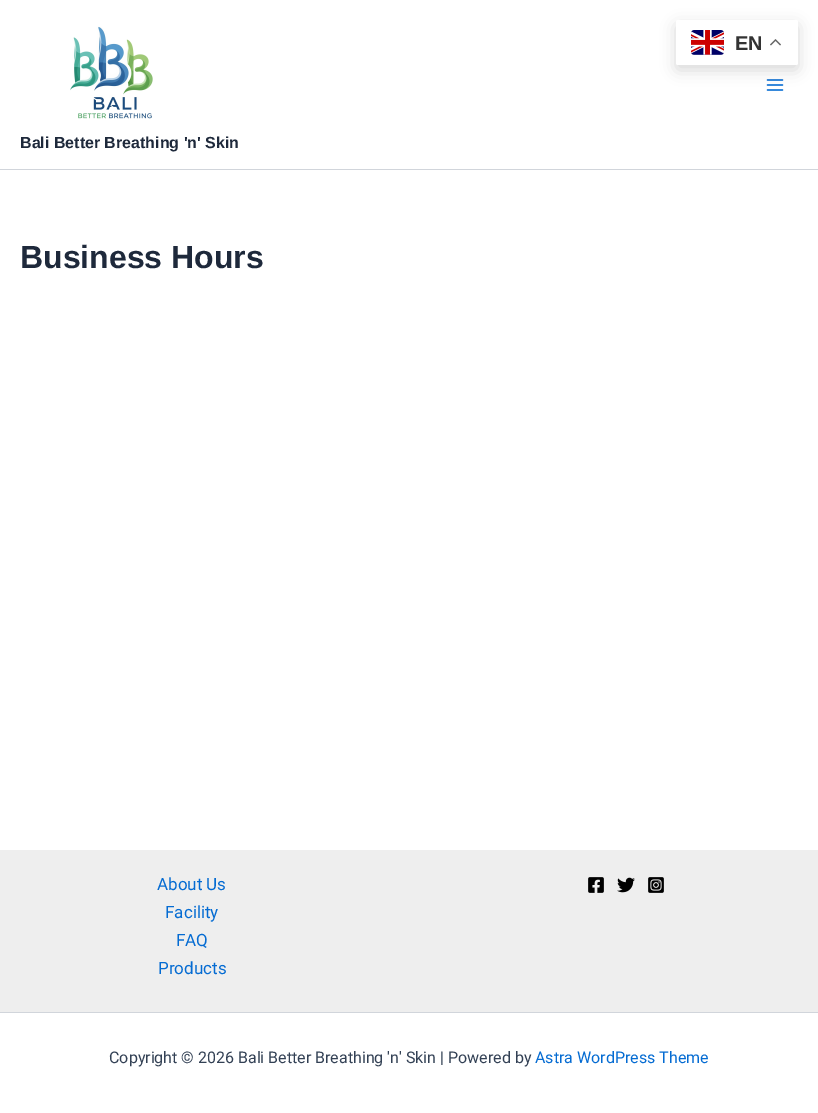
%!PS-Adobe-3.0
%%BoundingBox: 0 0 818 1113
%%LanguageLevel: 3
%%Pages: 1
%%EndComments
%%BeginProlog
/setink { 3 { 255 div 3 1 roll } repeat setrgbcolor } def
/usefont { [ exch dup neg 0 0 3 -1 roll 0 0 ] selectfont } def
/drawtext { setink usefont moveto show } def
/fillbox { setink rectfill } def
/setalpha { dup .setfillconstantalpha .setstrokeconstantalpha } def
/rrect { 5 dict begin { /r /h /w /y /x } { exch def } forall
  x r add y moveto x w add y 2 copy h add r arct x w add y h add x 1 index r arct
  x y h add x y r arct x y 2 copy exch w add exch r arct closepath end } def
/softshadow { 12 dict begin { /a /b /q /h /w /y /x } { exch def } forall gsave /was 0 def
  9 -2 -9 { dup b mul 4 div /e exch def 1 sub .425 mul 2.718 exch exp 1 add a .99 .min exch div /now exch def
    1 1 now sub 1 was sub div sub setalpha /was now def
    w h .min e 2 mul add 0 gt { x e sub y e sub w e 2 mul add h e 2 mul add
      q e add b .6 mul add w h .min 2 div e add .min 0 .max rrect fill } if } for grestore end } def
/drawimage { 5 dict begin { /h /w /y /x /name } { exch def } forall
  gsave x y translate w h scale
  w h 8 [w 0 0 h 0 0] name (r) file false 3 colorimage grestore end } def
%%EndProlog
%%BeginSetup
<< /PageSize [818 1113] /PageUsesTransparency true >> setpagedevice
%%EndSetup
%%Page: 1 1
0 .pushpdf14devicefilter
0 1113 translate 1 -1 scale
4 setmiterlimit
0 0 818 1113 255 255 255 fillbox
(assets/img3.rgb) 766 79 18 12 drawimage
0 0 0 setink
676 25 122 45 2 7.5 0.15 softshadow
255 255 255 setink
676 20 122 45 2 rrect fill
(assets/img1.rgb) 691 30 33 25 drawimage
(EN) 735 50 /LiberationSans-Bold 20 51 51 51 drawtext
(assets/img2.rgb) 770 39 11 7 drawimage
0 169 818 1 209 213 219 fillbox
(assets/img4.rgb) 70 26 83 93 drawimage
(Bali Better Breathing 'n' Skin) 20 148 /LiberationSans-Bold 16 30 41 59 drawtext
(Business Hours) 20 268 /LiberationSans-Bold 32 30 41 59 drawtext
0 850 818 162 238 238 238 fillbox
(About Us) 157 890 /Roboto-Regular 17 4 107 210 drawtext
(Facility) 165 918 /Roboto-Regular 17 4 107 210 drawtext
(FAQ) 176 946 /Roboto-Regular 17 4 107 210 drawtext
(Products) 158 974 /Roboto-Regular 17 4 107 210 drawtext
(assets/img5.rgb) 588 877 16 16 drawimage
(assets/img6.rgb) 617 877 18 16 drawimage
(assets/img7.rgb) 648 877 16 16 drawimage
0 1012 818 1 209 213 219 fillbox
(Copyright © 2026 Bali Better Breathing 'n' Skin | Powered by) 109 1063 /Roboto-Regular 16 51 65 85 drawtext
(Astra WordPress Theme) 535 1063 /Roboto-Regular 16 4 107 210 drawtext
.poppdf14devicefilter showpage
%%EOF
